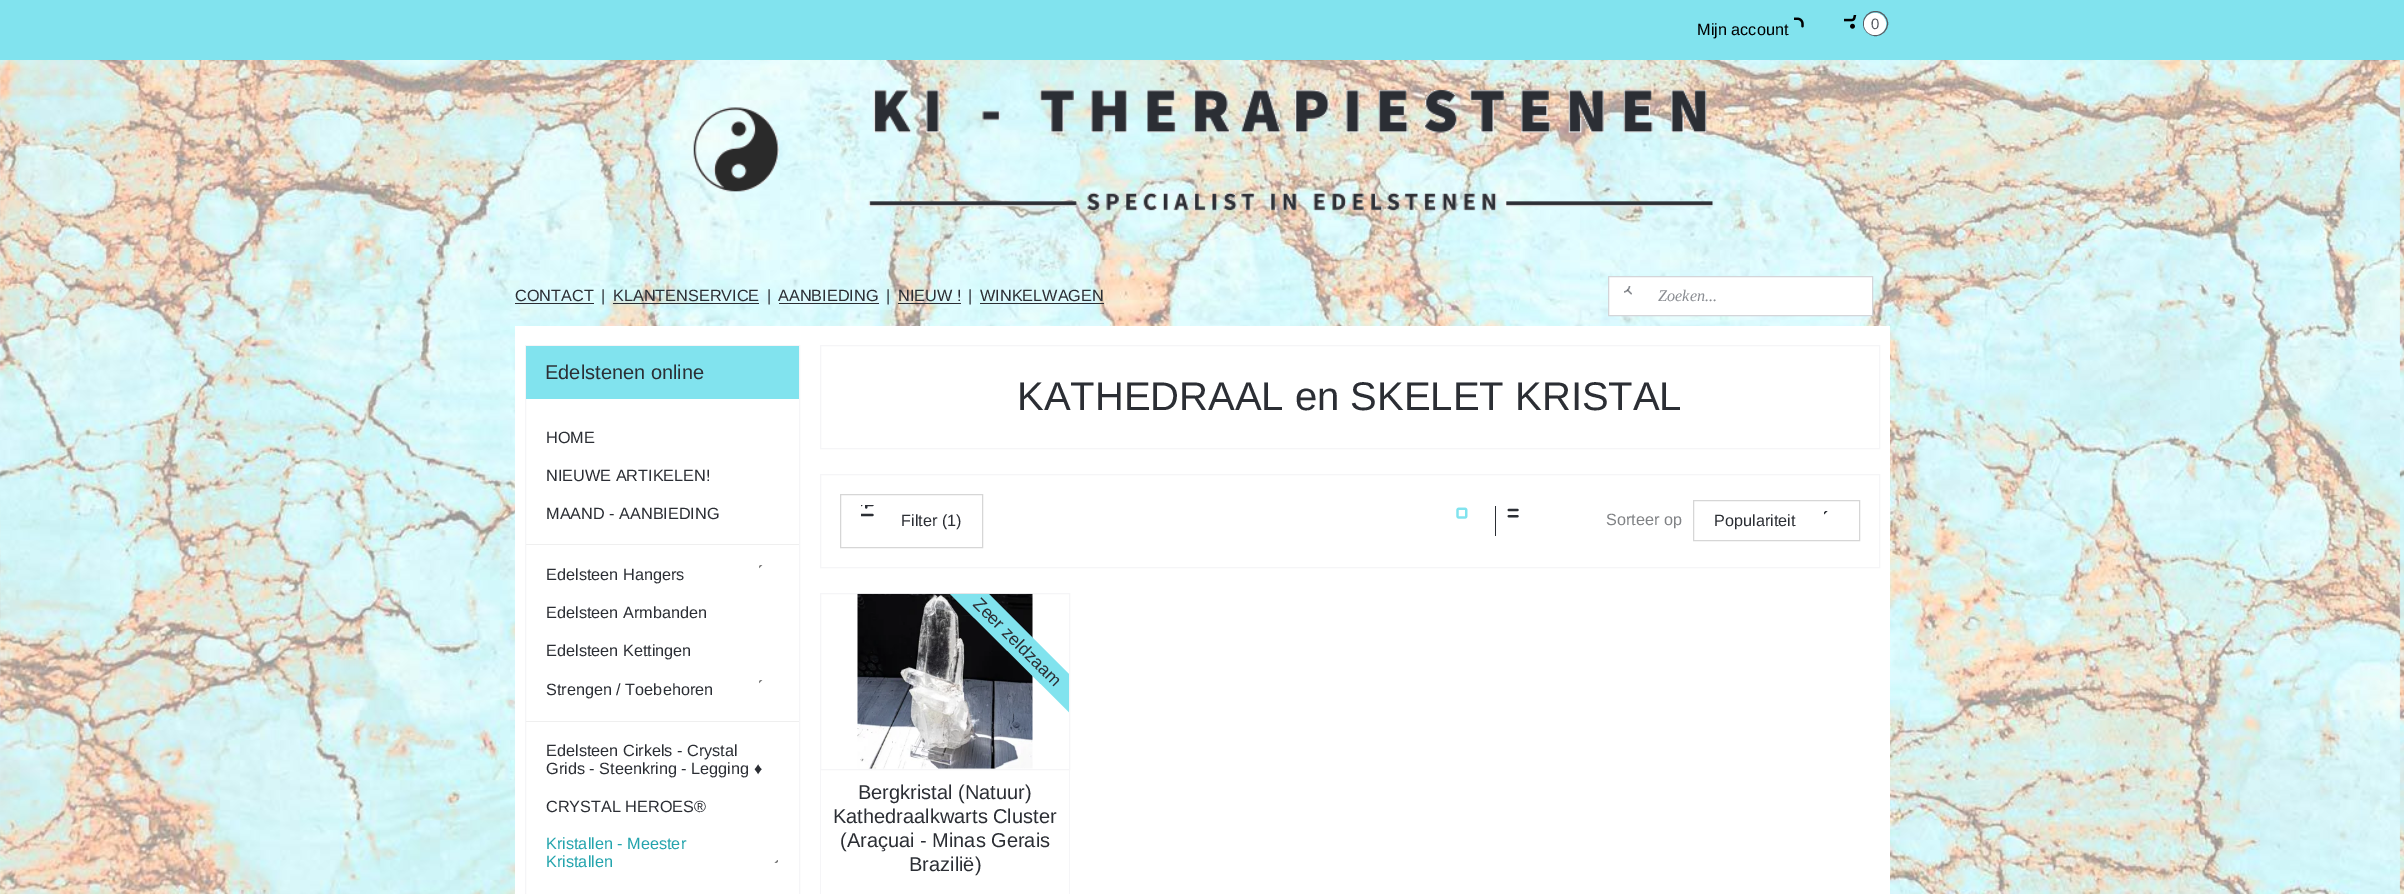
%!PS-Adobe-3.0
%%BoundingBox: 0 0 2404 894
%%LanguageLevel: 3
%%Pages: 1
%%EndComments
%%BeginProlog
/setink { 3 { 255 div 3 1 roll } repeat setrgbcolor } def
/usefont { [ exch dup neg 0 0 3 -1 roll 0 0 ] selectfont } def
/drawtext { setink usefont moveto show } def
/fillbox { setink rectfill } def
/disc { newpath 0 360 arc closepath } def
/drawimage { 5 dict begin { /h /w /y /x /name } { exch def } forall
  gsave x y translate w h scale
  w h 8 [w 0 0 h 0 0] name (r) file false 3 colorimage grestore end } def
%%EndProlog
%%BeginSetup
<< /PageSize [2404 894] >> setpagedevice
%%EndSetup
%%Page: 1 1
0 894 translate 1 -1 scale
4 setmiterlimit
0 0 2404 894 255 255 255 fillbox
(assets/img1.rgb) 0 893 2404 1 drawimage
0 0 2404 60 129 227 238 fillbox
(Mijn account) 1697 35 /LiberationSans-Regular 16.25 0 0 0 drawtext
(assets/img2.rgb) 1794 17 10 11 drawimage
(assets/img3.rgb) 1844 15 13 14 drawimage
87 91 98 setink
1875.5 23.5 12 disc stroke
255 255 255 setink
1875 24 11 disc fill
(0) 1871 29 /LiberationSans-Regular 15 87 91 98 drawtext
(assets/img6.rgb) 0 60 2404 833 drawimage
(assets/img4.rgb) 693 89 1020 122 drawimage
(CONTACT) 515 301 /LiberationSans-Regular 16.25 43 46 52 drawtext
515 303 79 1 43 46 52 fillbox
(|) 601 301 /LiberationSans-Regular 16.25 43 46 52 drawtext
(KLANTENSERVICE) 613 301 /LiberationSans-Regular 16.25 43 46 52 drawtext
613 303 146 1 43 46 52 fillbox
(|) 767 301 /LiberationSans-Regular 16.25 43 46 52 drawtext
(AANBIEDING) 778 301 /LiberationSans-Regular 16.25 43 46 52 drawtext
779 303 100 1 43 46 52 fillbox
(|) 886 301 /LiberationSans-Regular 16.25 43 46 52 drawtext
(NIEUW !) 898 301 /LiberationSans-Regular 16.25 43 46 52 drawtext
898 303 63 1 43 46 52 fillbox
(|) 968 301 /LiberationSans-Regular 16.25 43 46 52 drawtext
(WINKELWAGEN) 980 301 /LiberationSans-Regular 16.25 43 46 52 drawtext
980 303 124 1 43 46 52 fillbox
255 255 255 setink
1608.5 276.5 moveto 1872.5 276.5 lineto 1872.5 315.5 lineto 1608.5 315.5 lineto closepath gsave fill grestore
211 213 217 setink
stroke
(assets/img5.rgb) 1624 286 8 9 drawimage
(Zoeken...) 1658 301 /LiberationSerif-Italic 16.25 137 140 145 drawtext
515 326 1375 568 255 255 255 fillbox
245 245 247 setink
525.5 345.5 274 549 rectstroke
526 346 273 53 129 227 238 fillbox
(Edelstenen online) 545 379 /LiberationSans-Regular 20 43 46 52 drawtext
(HOME) 546 443 /LiberationSans-Regular 16.25 43 46 52 drawtext
(NIEUWE ARTIKELEN!) 546 481 /LiberationSans-Regular 16.25 43 46 52 drawtext
(MAAND - AANBIEDING) 546 519 /LiberationSans-Regular 16.25 43 46 52 drawtext
526 544 273 1 239 239 239 fillbox
(assets/img7.rgb) 759 565 4 4 drawimage
(Edelsteen Hangers) 546 580 /LiberationSans-Regular 16.25 43 46 52 drawtext
(Edelsteen Armbanden) 546 618 /LiberationSans-Regular 16.25 43 46 52 drawtext
(Edelsteen Kettingen) 546 656 /LiberationSans-Regular 16.25 43 46 52 drawtext
(assets/img7.rgb) 759 680 4 4 drawimage
(Strengen / Toebehoren) 546 695 /LiberationSans-Regular 16.25 43 46 52 drawtext
526 721 273 1 239 239 239 fillbox
(Edelsteen Cirkels - Crystal) 546 756 /LiberationSans-Regular 16.25 43 46 52 drawtext
(Grids - Steenkring - Legging ♦) 546 774 /LiberationSans-Regular 16.25 43 46 52 drawtext
(CRYSTAL HEROES®) 546 812 /LiberationSans-Regular 16.25 43 46 52 drawtext
(Kristallen - Meester) 546 849 /LiberationSans-Regular 16.25 35 164 173 drawtext
(Kristallen) 546 867 /LiberationSans-Regular 16.25 35 164 173 drawtext
(assets/img8.rgb) 774 860 4 3 drawimage
245 245 247 setink
820.5 345.5 1059 103 rectstroke
(KATHEDRAAL en SKELET KRISTAL) 1017 410 /LiberationSans-Regular 40 43 46 52 drawtext
245 245 247 setink
820.5 474.5 1059 93 rectstroke
214 214 214 setink
840.5 494.5 142 53 rectstroke
(assets/img9.rgb) 861 505 13 12 drawimage
(Filter \(1\)) 901 526 /LiberationSans-Regular 16.25 43 46 52 drawtext
(assets/img10.rgb) 1456 507 12 12 drawimage
1495 506 1 30 43 46 52 fillbox
(assets/img11.rgb) 1507 508 12 10 drawimage
(Sorteer op) 1606 525 /LiberationSans-Regular 16.25 128 130 133 drawtext
214 214 214 setink
1693.5 500.5 166 40 rectstroke
(assets/img12.rgb) 1824 511 4 4 drawimage
(Populariteit) 1714 526 /LiberationSans-Regular 16.25 43 46 52 drawtext
245 245 247 setink
820.5 593.5 249 176 rectstroke
(assets/img13.rgb) 857 593 176 176 drawimage
gsave
923 594 146 146 rectclip
129 227 238 setink
960 565 moveto 1093 698 lineto 1074 717 lineto 941 585 lineto closepath fill
grestore
/LiberationSans-Regular 17.5 usefont
43 46 52 setink
gsave 972 605 translate 45 rotate 0 0 moveto (Zeer zeldzaam) show grestore
1069 770 1 124 245 245 247 fillbox
820 770 1 124 245 245 247 fillbox
(Bergkristal \(Natuur\)) 858 799 /LiberationSans-Regular 20 43 46 52 drawtext
(Kathedraalkwarts Cluster) 833 823 /LiberationSans-Regular 20 43 46 52 drawtext
(\(Araçuai - Minas Gerais) 840 847 /LiberationSans-Regular 20 43 46 52 drawtext
(Brazilië\)) 909 871 /LiberationSans-Regular 20 43 46 52 drawtext
showpage
%%EOF
